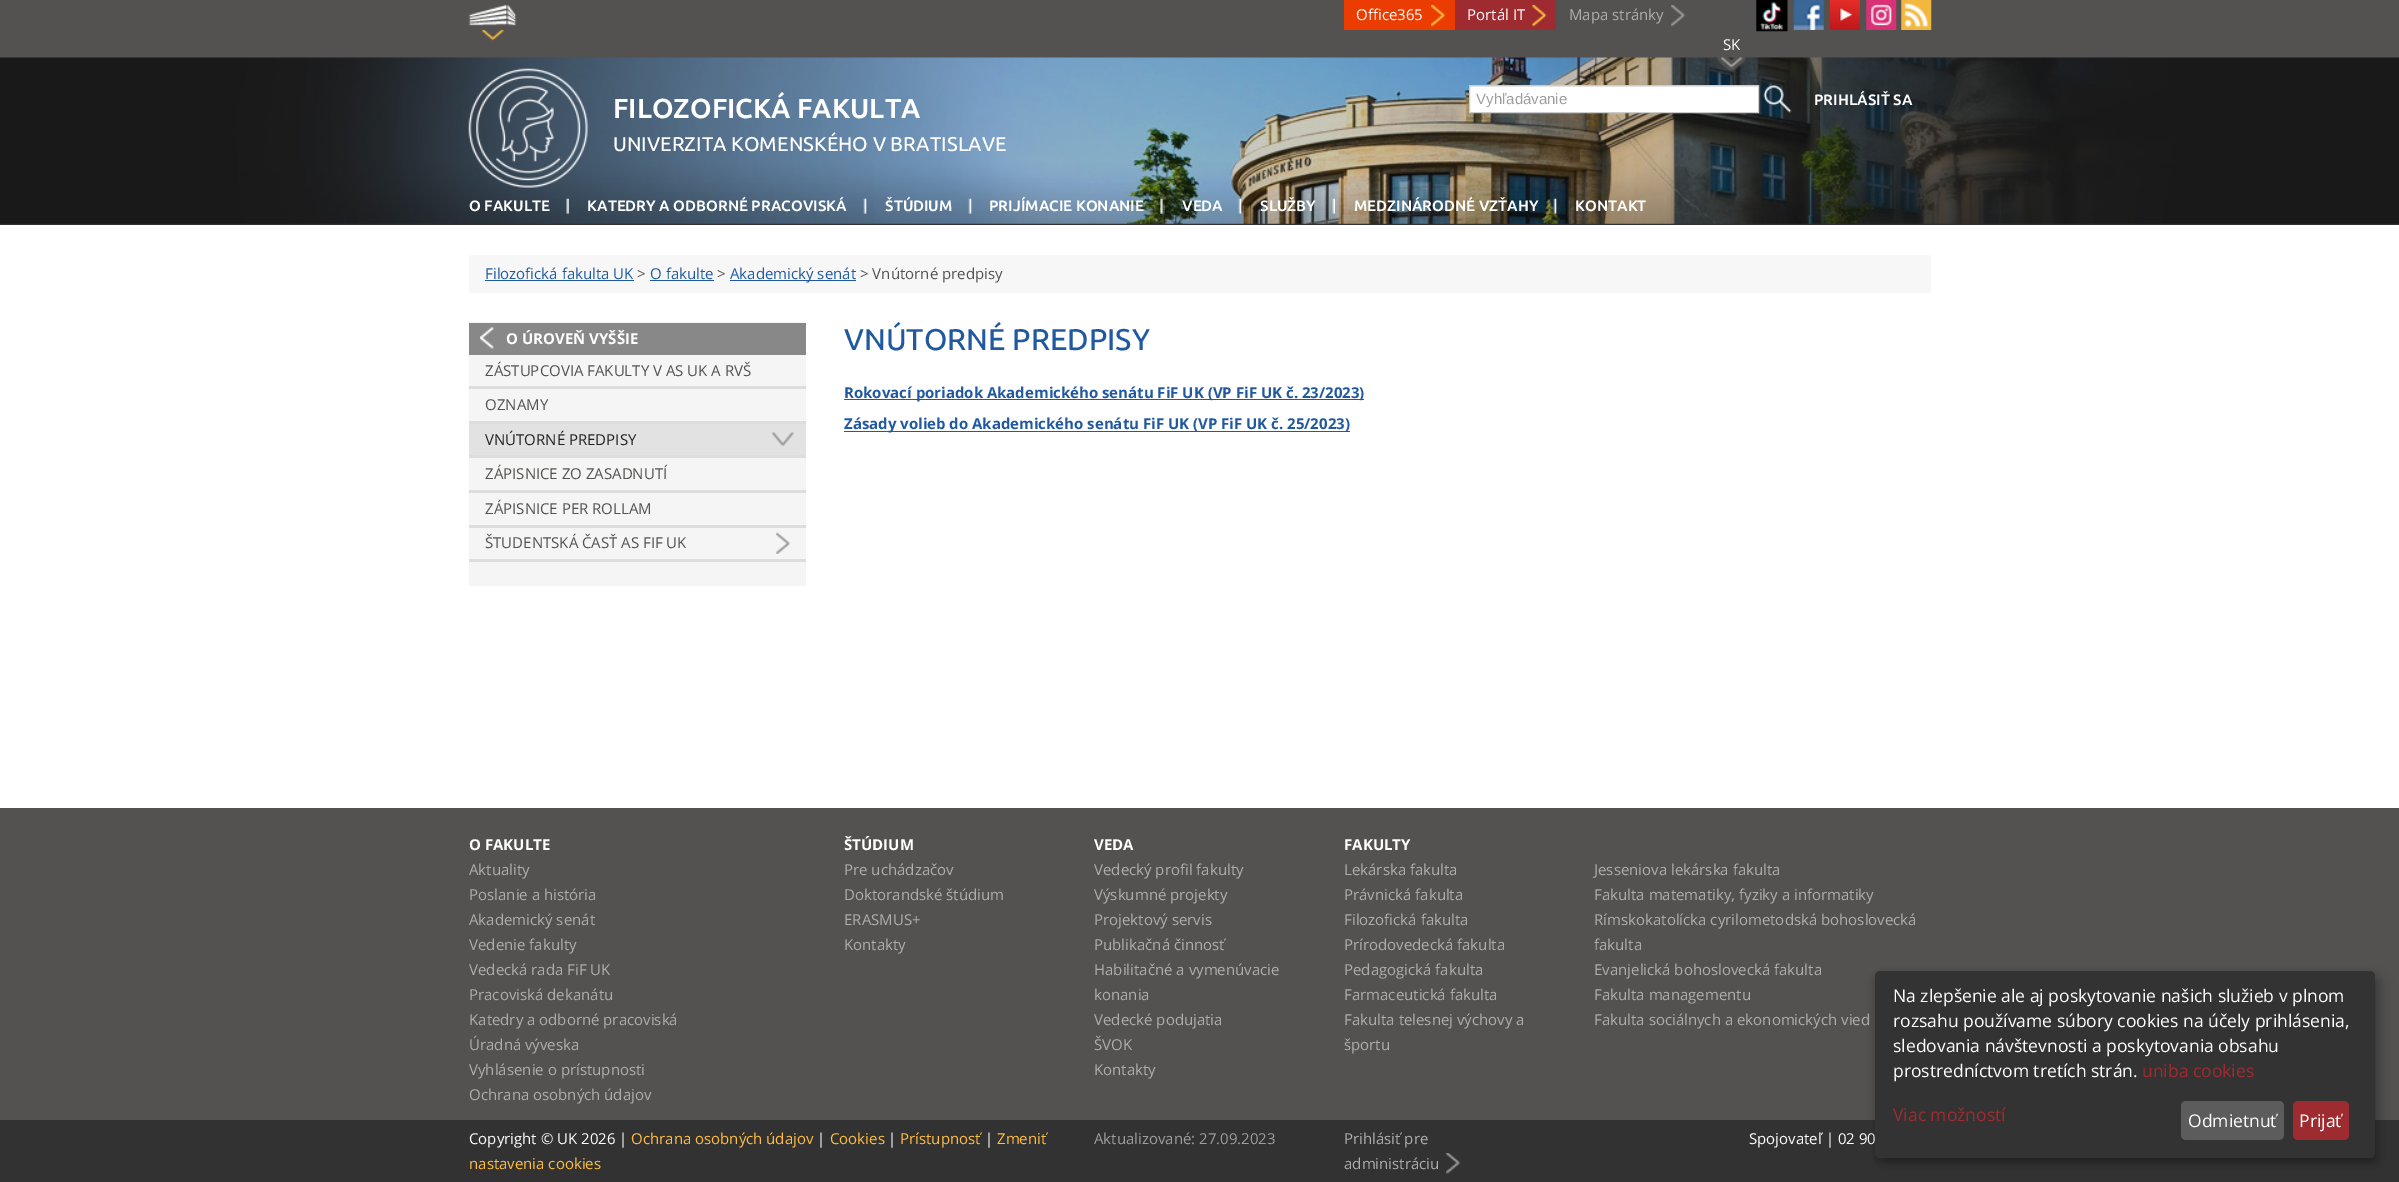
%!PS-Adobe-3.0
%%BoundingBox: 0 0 2399 1182
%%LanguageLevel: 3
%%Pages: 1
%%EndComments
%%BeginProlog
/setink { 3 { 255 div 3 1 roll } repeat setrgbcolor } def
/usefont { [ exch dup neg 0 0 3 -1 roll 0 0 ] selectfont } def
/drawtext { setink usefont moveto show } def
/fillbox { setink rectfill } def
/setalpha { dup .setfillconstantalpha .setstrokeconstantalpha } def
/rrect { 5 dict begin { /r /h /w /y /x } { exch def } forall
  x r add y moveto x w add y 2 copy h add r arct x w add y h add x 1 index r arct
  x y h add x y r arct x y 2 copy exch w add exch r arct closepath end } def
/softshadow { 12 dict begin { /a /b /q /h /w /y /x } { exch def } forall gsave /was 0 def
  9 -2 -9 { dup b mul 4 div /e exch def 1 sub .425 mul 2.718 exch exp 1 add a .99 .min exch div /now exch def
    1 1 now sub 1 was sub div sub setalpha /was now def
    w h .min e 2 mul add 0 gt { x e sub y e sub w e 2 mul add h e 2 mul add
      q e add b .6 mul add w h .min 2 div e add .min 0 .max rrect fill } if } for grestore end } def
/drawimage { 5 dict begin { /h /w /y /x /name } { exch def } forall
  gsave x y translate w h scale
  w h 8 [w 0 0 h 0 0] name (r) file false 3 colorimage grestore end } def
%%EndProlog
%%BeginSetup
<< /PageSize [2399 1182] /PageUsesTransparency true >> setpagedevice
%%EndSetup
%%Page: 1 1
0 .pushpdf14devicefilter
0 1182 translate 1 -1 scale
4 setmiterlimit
0 0 2399 1182 255 255 255 fillbox
0 0 2399 58 83 82 80 fillbox
(assets/img1.rgb) 468 4 49 37 drawimage
1344 0 111 30 235 61 1 fillbox
(assets/img2.rgb) 1431 5 15 22 drawimage
(Office365) 1356 20 /OpenSans-Regular 15 255 255 255 drawtext
1455 0 101 30 158 43 47 fillbox
(assets/img3.rgb) 1532 5 15 22 drawimage
(Portál IT) 1467 20 /OpenSans-Regular 15 255 255 255 drawtext
(assets/img4.rgb) 1671 5 14 22 drawimage
(Mapa stránky) 1569 20 /OpenSans-Regular 15 173 173 173 drawtext
(assets/img5.rgb) 1756 0 32 32 drawimage
(assets/img6.rgb) 1793 0 31 30 drawimage
(assets/img7.rgb) 1830 0 30 30 drawimage
(assets/img8.rgb) 1866 0 31 30 drawimage
(assets/img9.rgb) 1901 0 31 30 drawimage
0 223 2399 2 50 50 50 fillbox
(assets/img11.rgb) 0 57 2399 167 drawimage
(assets/img10.rgb) 1717 57 29 14 drawimage
(SK) 1723 50 /OpenSans-Regular 15 255 255 255 drawtext
(PRIHLÁSIŤ SA) 1814 105 /Ubuntu-Bold 15 255 255 255 drawtext
(O FAKULTE) 469 211 /Ubuntu-Bold 15 255 255 255 drawtext
(assets/img12.rgb) 566 198 3 16 drawimage
(KATEDRY A ODBORNÉ PRACOVISKÁ) 587 211 /Ubuntu-Bold 15 255 255 255 drawtext
(assets/img13.rgb) 863 198 4 16 drawimage
(ŠTÚDIUM) 885 211 /Ubuntu-Bold 15 255 255 255 drawtext
(assets/img14.rgb) 968 198 4 16 drawimage
(PRIJÍMACIE KONANIE) 989 211 /Ubuntu-Bold 15 255 255 255 drawtext
(assets/img15.rgb) 1160 198 3 16 drawimage
(VEDA) 1182 211 /Ubuntu-Bold 15 255 255 255 drawtext
(assets/img16.rgb) 1238 198 4 16 drawimage
(SLUŽBY) 1260 211 /Ubuntu-Bold 15 255 255 255 drawtext
(assets/img17.rgb) 1332 198 3 16 drawimage
(MEDZINÁRODNÉ VZŤAHY) 1354 211 /Ubuntu-Bold 15 255 255 255 drawtext
(assets/img18.rgb) 1553 198 4 16 drawimage
(KONTAKT) 1575 211 /Ubuntu-Bold 15 255 255 255 drawtext
(assets/img19.rgb) 468 68 120 120 drawimage
(FILOZOFICKÁ FAKULTA) 613 118 /Ubuntu-Bold 27.5 255 255 255 drawtext
(UNIVERZITA KOMENSKÉHO V BRATISLAVE) 613 151 /Ubuntu-Medium 20 255 255 255 drawtext
1470 87 288 25 255 255 255 fillbox
1470 86 288 1 236 236 236 fillbox
204 204 204 setink
1469.5 85.5 289 27 rectstroke
(Vyhľadávanie) 1476 104 /LiberationSans-Regular 15 157 157 157 drawtext
(assets/img20.rgb) 1763 85 29 28 drawimage
469 255 1462 38 247 247 247 fillbox
(Filozofická fakulta UK) 485 279 /OpenSans-Regular 15 33 89 160 drawtext
485 280 149 1 33 89 160 fillbox
(>) 637 279 /OpenSans-Regular 15 83 82 80 drawtext
(O fakulte) 650 279 /OpenSans-Regular 15 33 89 160 drawtext
650 280 64 1 33 89 160 fillbox
(>) 717 279 /OpenSans-Regular 15 83 82 80 drawtext
730 280 126 1 33 89 160 fillbox
(Akademický senát) 730 279 /OpenSans-Regular 15 33 89 160 drawtext
(> Vnútorné predpisy) 860 279 /OpenSans-Regular 15 83 82 80 drawtext
469 322 337 264 245 245 245 fillbox
469 323 337 32 136 136 136 fillbox
(assets/img21.rgb) 480 327 14 22 drawimage
(O ÚROVEŇ VYŠŠIE) 506 344 /OpenSans-Bold 15 255 255 255 drawtext
469 386 337 3 221 221 221 fillbox
(ZÁSTUPCOVIA FAKULTY V AS UK A RVŠ) 485 376 /OpenSans-Regular 15 83 82 80 drawtext
469 421 337 3 221 221 221 fillbox
(OZNAMY) 485 410 /OpenSans-Regular 15 83 82 80 drawtext
469 455 337 3 221 221 221 fillbox
469 424 337 31 226 226 226 fillbox
(assets/img22.rgb) 772 432 22 15 drawimage
(VNÚTORNÉ PREDPISY) 485 445 /OpenSans-Regular 15 34 34 34 drawtext
469 490 337 3 221 221 221 fillbox
(ZÁPISNICE ZO ZASADNUTÍ) 485 479 /OpenSans-Regular 15 83 82 80 drawtext
469 525 337 3 221 221 221 fillbox
(ZÁPISNICE PER ROLLAM) 485 514 /OpenSans-Regular 15 83 82 80 drawtext
469 559 337 3 221 221 221 fillbox
(assets/img23.rgb) 776 532 15 22 drawimage
(ŠTUDENTSKÁ ČASŤ AS FIF UK) 485 548 /OpenSans-Regular 15 83 82 80 drawtext
(VNÚTORNÉ PREDPISY) 844 350 /Ubuntu-Medium 30 33 89 160 drawtext
844 399 520 1 33 89 160 fillbox
(Rokovací poriadok Akademického senátu FiF UK \(VP FiF UK č. 23/2023\)) 844 398 /OpenSans-Bold 15 33 89 160 drawtext
844 431 506 1 33 89 160 fillbox
(Zásady volieb do Akademického senátu FiF UK \(VP FiF UK č. 25/2023\)) 844 429 /OpenSans-Bold 15 33 89 160 drawtext
0 808 2399 312 83 82 80 fillbox
(O FAKULTE) 469 850 /OpenSans-Bold 15 255 255 255 drawtext
(Aktuality) 469 875 /OpenSans-Regular 15 173 173 173 drawtext
(Poslanie a história) 469 900 /OpenSans-Regular 15 173 173 173 drawtext
(Akademický senát) 469 925 /OpenSans-Regular 15 173 173 173 drawtext
(Vedenie fakulty) 469 950 /OpenSans-Regular 15 173 173 173 drawtext
(Vedecká rada FiF UK) 469 975 /OpenSans-Regular 15 173 173 173 drawtext
(Pracoviská dekanátu) 469 1000 /OpenSans-Regular 15 173 173 173 drawtext
(Katedry a odborné pracoviská) 469 1025 /OpenSans-Regular 15 173 173 173 drawtext
(Úradná výveska) 469 1050 /OpenSans-Regular 15 173 173 173 drawtext
(Vyhlásenie o prístupnosti) 469 1075 /OpenSans-Regular 15 173 173 173 drawtext
(Ochrana osobných údajov) 469 1100 /OpenSans-Regular 15 173 173 173 drawtext
(ŠTÚDIUM) 844 850 /OpenSans-Bold 15 255 255 255 drawtext
(Pre uchádzačov) 844 875 /OpenSans-Regular 15 173 173 173 drawtext
(Doktorandské štúdium) 844 900 /OpenSans-Regular 15 173 173 173 drawtext
(ERASMUS+) 844 925 /OpenSans-Regular 15 173 173 173 drawtext
(Kontakty) 844 950 /OpenSans-Regular 15 173 173 173 drawtext
(VEDA) 1094 850 /OpenSans-Bold 15 255 255 255 drawtext
(Vedecký profil fakulty) 1094 875 /OpenSans-Regular 15 173 173 173 drawtext
(Výskumné projekty) 1094 900 /OpenSans-Regular 15 173 173 173 drawtext
(Projektový servis) 1094 925 /OpenSans-Regular 15 173 173 173 drawtext
(Publikačná činnosť) 1094 950 /OpenSans-Regular 15 173 173 173 drawtext
(Habilitačné a vymenúvacie) 1094 975 /OpenSans-Regular 15 173 173 173 drawtext
(konania) 1094 1000 /OpenSans-Regular 15 173 173 173 drawtext
(Vedecké podujatia) 1094 1025 /OpenSans-Regular 15 173 173 173 drawtext
(ŠVOK) 1094 1050 /OpenSans-Regular 15 173 173 173 drawtext
(Kontakty) 1094 1075 /OpenSans-Regular 15 173 173 173 drawtext
(FAKULTY) 1344 850 /OpenSans-Bold 15 255 255 255 drawtext
(Lekárska fakulta) 1344 875 /OpenSans-Regular 15 173 173 173 drawtext
(Právnická fakulta) 1344 900 /OpenSans-Regular 15 173 173 173 drawtext
(Filozofická fakulta) 1344 925 /OpenSans-Regular 15 173 173 173 drawtext
(Prírodovedecká fakulta) 1344 950 /OpenSans-Regular 15 173 173 173 drawtext
(Pedagogická fakulta) 1344 975 /OpenSans-Regular 15 173 173 173 drawtext
(Farmaceutická fakulta) 1344 1000 /OpenSans-Regular 15 173 173 173 drawtext
(Fakulta telesnej výchovy a) 1344 1025 /OpenSans-Regular 15 173 173 173 drawtext
(športu) 1344 1050 /OpenSans-Regular 15 173 173 173 drawtext
(Jesseniova lekárska fakulta) 1594 875 /OpenSans-Regular 15 173 173 173 drawtext
(Fakulta matematiky, fyziky a informatiky) 1594 900 /OpenSans-Regular 15 173 173 173 drawtext
(Rímskokatolícka cyrilometodská bohoslovecká) 1594 925 /OpenSans-Regular 15 173 173 173 drawtext
(fakulta) 1594 950 /OpenSans-Regular 15 173 173 173 drawtext
(Evanjelická bohoslovecká fakulta) 1594 975 /OpenSans-Regular 15 173 173 173 drawtext
(Fakulta managementu) 1594 1000 /OpenSans-Regular 15 173 173 173 drawtext
(Fakulta sociálnych a ekonomických vied) 1594 1025 /OpenSans-Regular 15 173 173 173 drawtext
0 1120 2399 62 50 50 50 fillbox
(Copyright © UK 2026 |) 469 1144 /OpenSans-Regular 15 255 255 255 drawtext
(Ochrana osobných údajov) 631 1144 /OpenSans-Regular 15 255 189 67 drawtext
(|) 817 1144 /OpenSans-Regular 15 255 255 255 drawtext
(Cookies) 830 1144 /OpenSans-Regular 15 255 189 67 drawtext
(|) 888 1144 /OpenSans-Regular 15 255 255 255 drawtext
(Prístupnosť) 900 1144 /OpenSans-Regular 15 255 189 67 drawtext
(|) 985 1144 /OpenSans-Regular 15 255 255 255 drawtext
(Zmeniť) 997 1144 /OpenSans-Regular 15 255 189 67 drawtext
(nastavenia cookies) 469 1169 /OpenSans-Regular 15 255 189 67 drawtext
(Aktualizované: 27.09.2023) 1094 1144 /OpenSans-Regular 15 157 157 157 drawtext
(Prihlásiť pre) 1344 1144 /OpenSans-Regular 15 173 173 173 drawtext
(administráciu) 1344 1169 /OpenSans-Regular 15 173 173 173 drawtext
(assets/img24.rgb) 1446 1153 15 21 drawimage
(Spojovateľ | 02 90) 1749 1144 /OpenSans-Regular 15 255 255 255 drawtext
0 0 0 setink
1881 978 500 186 5 6 0.19 softshadow
1875 976 500 187 5 4 0.2 softshadow
51 51 51 setink
1875 971 500 187 5 rrect fill
(Na zlepšenie ale aj poskytovanie našich služieb v plnom) 1893 1002 /OpenSans-Regular 17.5 255 255 255 drawtext
(rozsahu používame súbory cookies na účely prihlásenia,) 1893 1027 /OpenSans-Regular 17.5 255 255 255 drawtext
(sledovania návštevnosti a poskytovania obsahu) 1893 1052 /OpenSans-Regular 17.5 255 255 255 drawtext
(prostredníctvom tretích strán.) 1893 1077 /OpenSans-Regular 17.5 255 255 255 drawtext
(uniba cookies) 2142 1077 /OpenSans-Regular 17.5 158 43 47 drawtext
(Viac možností) 1893 1121 /OpenSans-Regular 17.5 158 43 47 drawtext
92 92 92 setink
2181 1101 103 39 5 rrect fill
(Odmietnuť) 2188 1127 /OpenSans-Regular 17.5 255 255 255 drawtext
158 43 47 setink
2293 1101 56 39 5 rrect fill
(Prijať) 2299 1127 /OpenSans-Regular 17.5 255 255 255 drawtext
.poppdf14devicefilter showpage
%%EOF
